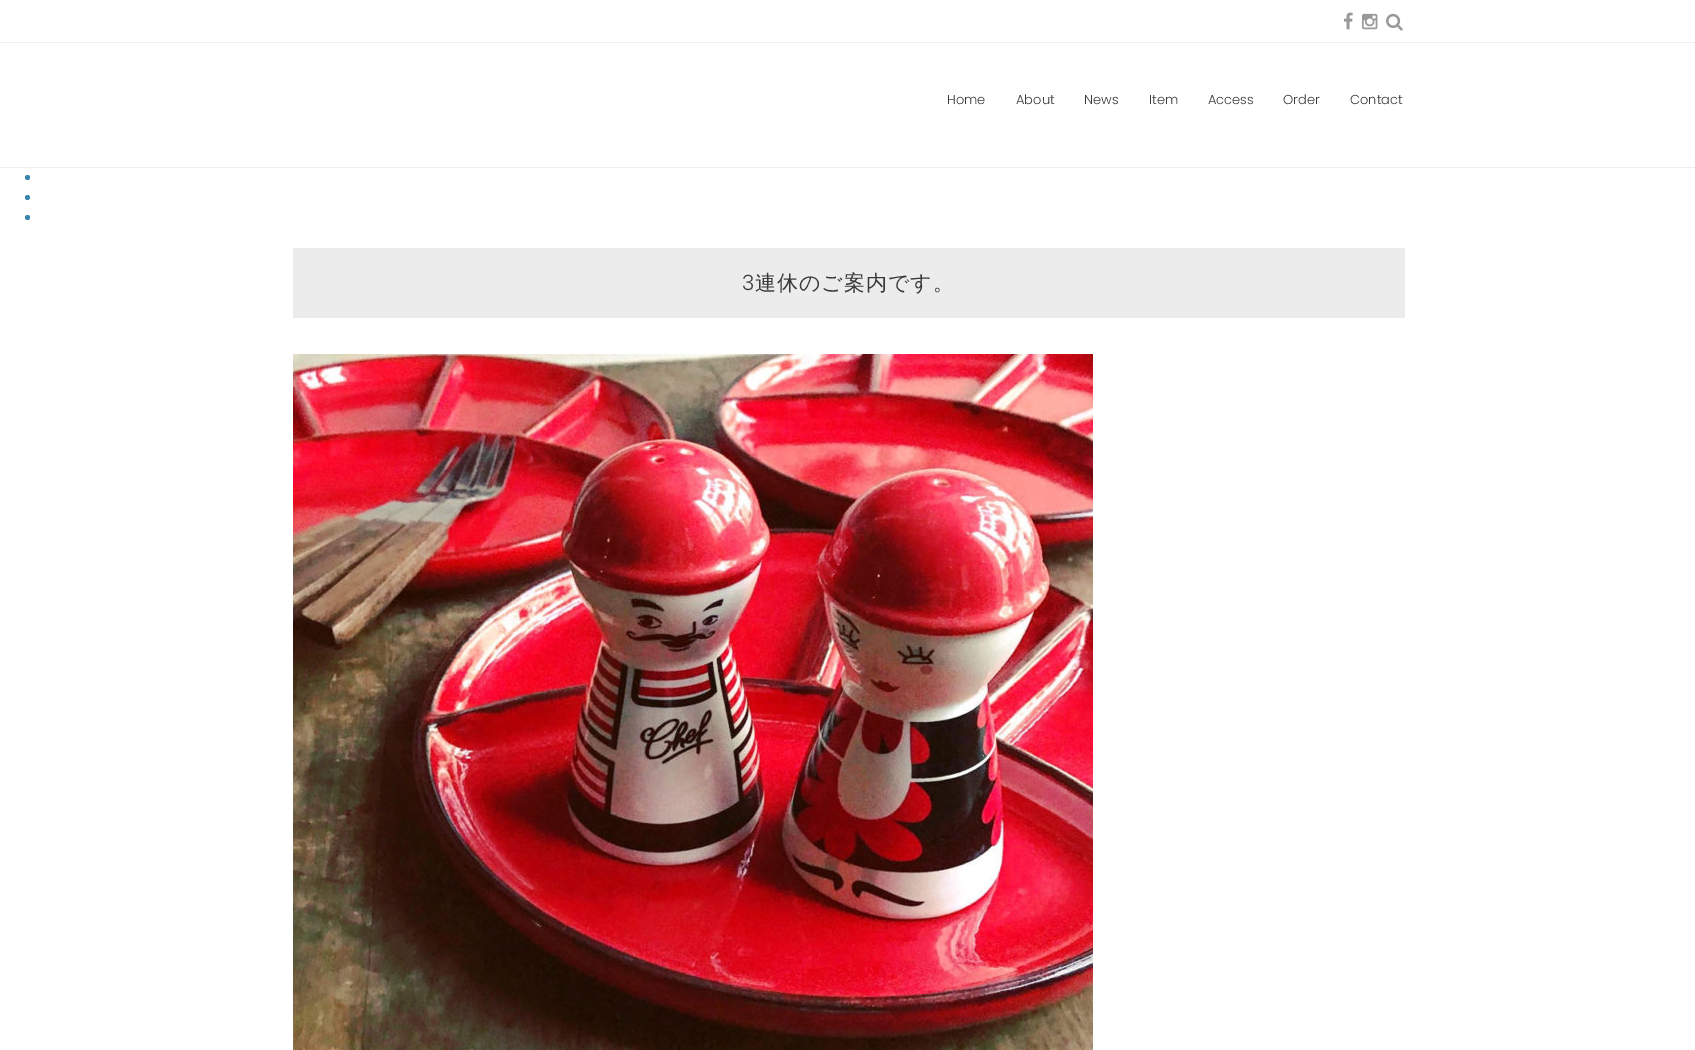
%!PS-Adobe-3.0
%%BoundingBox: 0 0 1695 1050
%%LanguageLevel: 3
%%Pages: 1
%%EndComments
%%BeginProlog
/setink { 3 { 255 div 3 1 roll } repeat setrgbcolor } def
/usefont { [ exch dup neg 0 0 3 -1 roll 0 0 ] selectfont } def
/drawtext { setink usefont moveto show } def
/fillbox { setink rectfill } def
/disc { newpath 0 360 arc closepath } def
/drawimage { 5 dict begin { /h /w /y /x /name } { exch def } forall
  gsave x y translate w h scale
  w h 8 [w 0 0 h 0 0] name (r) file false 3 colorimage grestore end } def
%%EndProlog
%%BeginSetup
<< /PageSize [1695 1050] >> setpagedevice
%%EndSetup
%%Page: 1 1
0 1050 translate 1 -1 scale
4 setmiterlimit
0 0 1695 1050 255 255 255 fillbox
0 42 1695 1 238 238 238 fillbox
(assets/img1.rgb) 1343 12 10 18 drawimage
(assets/img2.rgb) 1362 13 16 17 drawimage
(assets/img3.rgb) 1386 13 17 18 drawimage
0 167 1695 1 238 238 238 fillbox
(Home) 947 104 /Poppins-Light 13 58 58 58 drawtext
(About) 1016 104 /Poppins-Light 13 58 58 58 drawtext
(News) 1084 104 /Poppins-Light 13 58 58 58 drawtext
(Item) 1149 104 /Poppins-Light 13 58 58 58 drawtext
(Access) 1208 104 /Poppins-Light 13 58 58 58 drawtext
(Order) 1283 104 /Poppins-Light 13 58 58 58 drawtext
(Contact) 1350 104 /Poppins-Light 13 58 58 58 drawtext
58 133 174 setink
27.5 177.5 2.5 disc fill
27.5 197.5 2.5 disc fill
27.5 217.5 2.5 disc fill
293 248 1112 70 236 236 236 fillbox
/Poppins-Light 21 usefont
58 58 58 setink
742 290 moveto 1 0 (3) ashow
/WenQuanYiZenHei-Medium 21 usefont
755 290 moveto 1 0 (連休のご案内です。) ashow
(assets/img4.rgb) 293 354 800 696 drawimage
showpage
%%EOF
